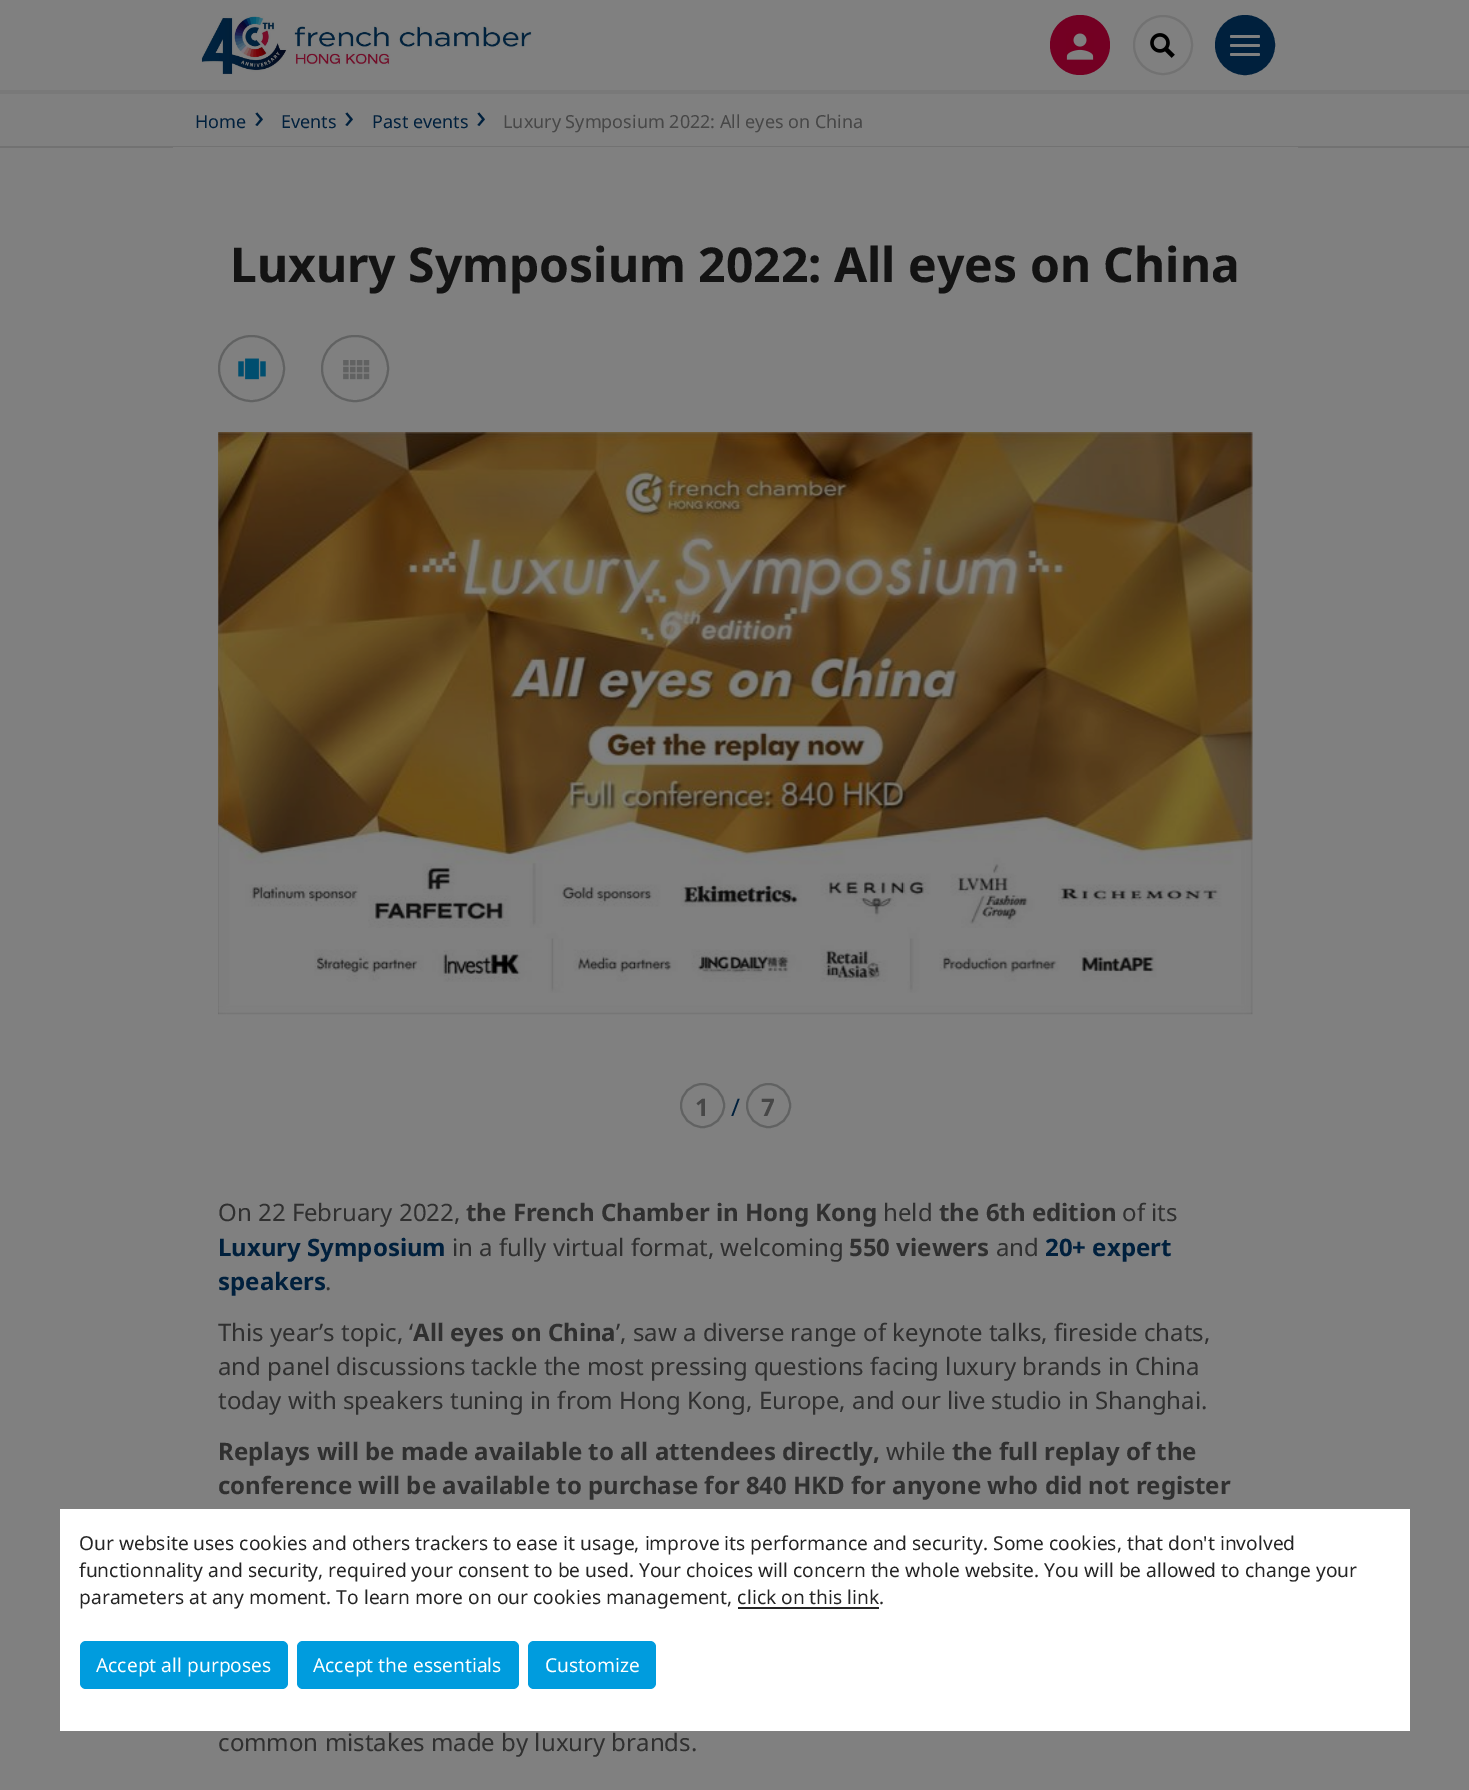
%!PS-Adobe-3.0
%%BoundingBox: 0 0 1469 1790
%%LanguageLevel: 3
%%Pages: 1
%%EndComments
%%BeginProlog
/setink { 3 { 255 div 3 1 roll } repeat setrgbcolor } def
/usefont { [ exch dup neg 0 0 3 -1 roll 0 0 ] selectfont } def
/drawtext { setink usefont moveto show } def
/fillbox { setink rectfill } def
/disc { newpath 0 360 arc closepath } def
/rrect { 5 dict begin { /r /h /w /y /x } { exch def } forall
  x r add y moveto x w add y 2 copy h add r arct x w add y h add x 1 index r arct
  x y h add x y r arct x y 2 copy exch w add exch r arct closepath end } def
/drawimage { 5 dict begin { /h /w /y /x /name } { exch def } forall
  gsave x y translate w h scale
  w h 8 [w 0 0 h 0 0] name (r) file false 3 colorimage grestore end } def
%%EndProlog
%%BeginSetup
<< /PageSize [1469 1790] >> setpagedevice
%%EndSetup
%%Page: 1 1
0 1790 translate 1 -1 scale
4 setmiterlimit
0 0 1469 1790 128 128 128 fillbox
0 90 1469 4 121 121 121 fillbox
(assets/img1.rgb) 201 16 331 59 drawimage
115 0 35 setink
1080 45 30 disc fill
(assets/img2.rgb) 1066 33 28 27 drawimage
114 114 114 setink
2 setlinewidth
1163 45 29 disc stroke
(assets/img3.rgb) 1150 33 25 25 drawimage
0 32 61 setink
1245 45 29 disc gsave fill grestore
stroke
128 128 128 setink
1230 35 30 3 1.5 rrect fill
1230 44 30 3 1.5 rrect fill
1230 53 30 3 1.5 rrect fill
0 146 1469 2 114 114 114 fillbox
(Home) 195 128 /NotoSans-Regular 18 0 32 61 drawtext
(›) 254 128 /NotoSans-Regular 33 0 32 61 drawtext
(Events) 281 128 /NotoSans-Regular 18 0 32 61 drawtext
(›) 344 128 /NotoSans-Regular 33 0 32 61 drawtext
(Past events) 372 128 /NotoSans-Regular 18 0 32 61 drawtext
(›) 476 128 /NotoSans-Regular 33 0 32 61 drawtext
(Luxury Symposium 2022: All eyes on China) 503 128 /NotoSans-Regular 18 71 71 71 drawtext
173 147 1125 1 128 128 128 fillbox
(Luxury Symposium 2022: All eyes on China) 230 282 /NotoSans-Bold 48 19 19 19 drawtext
97 98 98 setink
251.5 368.5 32.5 disc stroke
(assets/img4.rgb) 238 358 28 22 drawimage
322 336 66 65 32.5 rrect stroke
(assets/img5.rgb) 343 360 27 20 drawimage
(assets/img6.rgb) 218 432 1035 583 drawimage
702.5 1105.5 21.5 disc stroke
(1) 695 1116 /NotoSans-Bold 24 71 71 71 drawtext
(/) 731 1116 /NotoSans-Regular 24 0 32 61 drawtext
97 98 98 setink
768.5 1105.5 21.5 disc stroke
(7) 761 1116 /NotoSans-Bold 24 71 71 71 drawtext
(On 22 February 2022,) 218 1221 /NotoSans-Regular 24 48 48 48 drawtext
(the French Chamber in Hong Kong) 466 1221 /NotoSans-Bold 24 48 48 48 drawtext
(held) 883 1221 /NotoSans-Regular 24 48 48 48 drawtext
(the 6th edition) 939 1221 /NotoSans-Bold 24 48 48 48 drawtext
(of its) 1122 1221 /NotoSans-Regular 24 48 48 48 drawtext
(Luxury Symposium) 218 1256 /NotoSans-Bold 24 0 32 61 drawtext
(in a fully virtual format, welcoming) 452 1256 /NotoSans-Regular 24 48 48 48 drawtext
(550 viewers) 849 1256 /NotoSans-Bold 24 48 48 48 drawtext
(and) 996 1256 /NotoSans-Regular 24 48 48 48 drawtext
(20+ expert) 1045 1256 /NotoSans-Bold 24 0 32 61 drawtext
(speakers) 218 1290 /NotoSans-Bold 24 0 32 61 drawtext
(.) 325 1290 /NotoSans-Regular 24 48 48 48 drawtext
(This year’s topic, ‘) 218 1341 /NotoSans-Regular 24 48 48 48 drawtext
(All eyes on China) 413 1341 /NotoSans-Bold 24 48 48 48 drawtext
(’, saw a diverse range of keynote talks, fireside chats,) 616 1341 /NotoSans-Regular 24 48 48 48 drawtext
(and panel discussions tackle the most pressing questions facing luxury brands in China) 218 1375 /NotoSans-Regular 24 48 48 48 drawtext
(today with speakers tuning in from Hong Kong, Europe, and our live studio in Shanghai.) 218 1409 /NotoSans-Regular 24 48 48 48 drawtext
(Replays will be made available to all attendees directly,) 218 1460 /NotoSans-Bold 24 48 48 48 drawtext
(while) 886 1460 /NotoSans-Regular 24 48 48 48 drawtext
(the full replay of the) 952 1460 /NotoSans-Bold 24 48 48 48 drawtext
(conference will be available to purchase for 840 HKD for anyone who did not register) 218 1494 /NotoSans-Bold 24 48 48 48 drawtext
(common mistakes made by luxury brands.) 218 1751 /NotoSans-Regular 24 48 48 48 drawtext
60 1509 1350 222 255 255 255 fillbox
(Our website uses cookies and others trackers to ease it usage, improve its performance and security. Some cookies, that don't involved) 79 1550 /NotoSans-Regular 19.2 37 37 37 drawtext
(functionnality and security, required your consent to be used. Your choices will concern the whole website. You will be allowed to change your) 79 1577 /NotoSans-Regular 19.2 37 37 37 drawtext
(parameters at any moment. To learn more on our cookies management, click on this link.) 79 1604 /NotoSans-Regular 19.2 37 37 37 drawtext
738 1607 141 2 37 37 37 fillbox
0 156 222 setink
80 1641 208 48 6 rrect fill
(Accept all purposes) 96 1672 /NotoSans-Regular 19.2 255 255 255 drawtext
0 156 222 setink
297 1641 222 48 6 rrect fill
(Accept the essentials) 313 1672 /NotoSans-Regular 19.2 255 255 255 drawtext
0 156 222 setink
528 1641 128 48 6 rrect fill
(Customize) 545 1672 /NotoSans-Regular 19.2 255 255 255 drawtext
showpage
%%EOF
